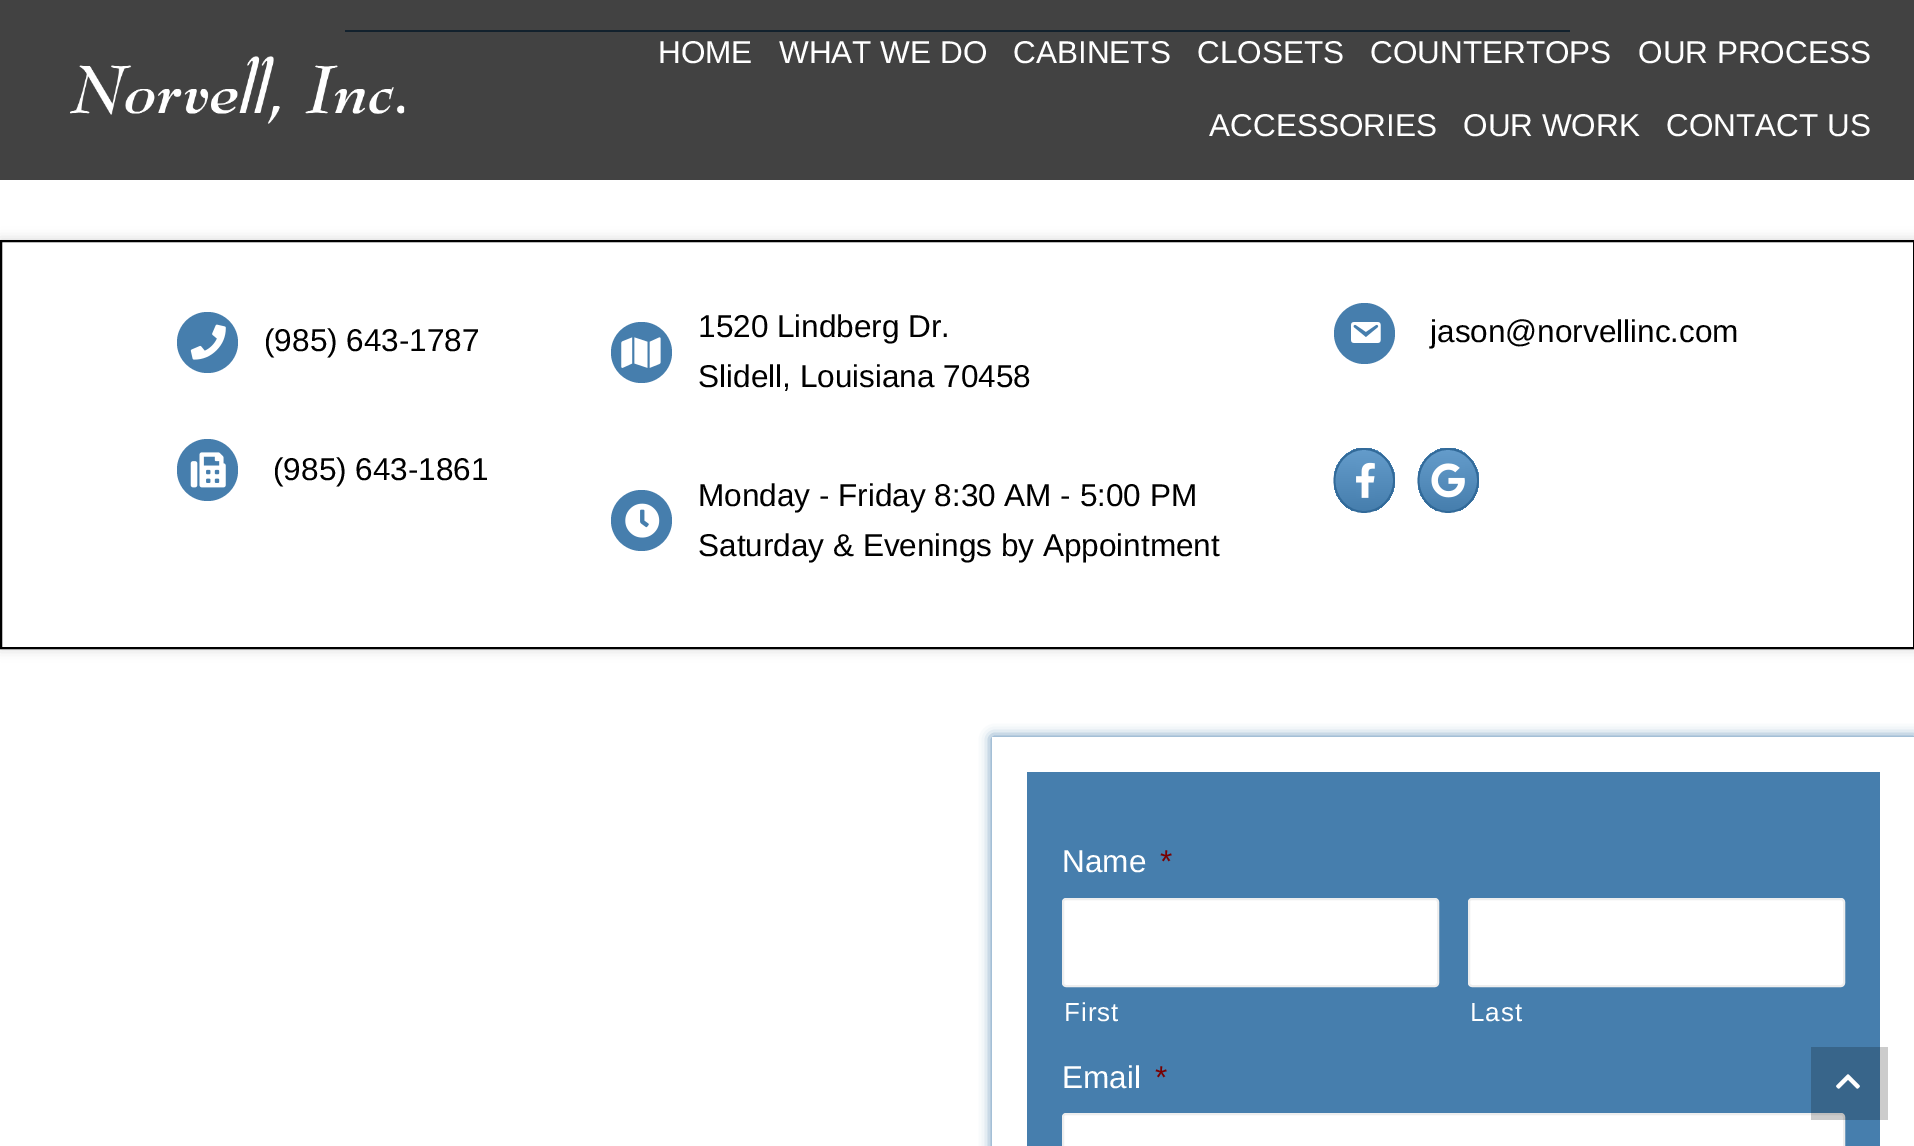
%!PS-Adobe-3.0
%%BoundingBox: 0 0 1914 1146
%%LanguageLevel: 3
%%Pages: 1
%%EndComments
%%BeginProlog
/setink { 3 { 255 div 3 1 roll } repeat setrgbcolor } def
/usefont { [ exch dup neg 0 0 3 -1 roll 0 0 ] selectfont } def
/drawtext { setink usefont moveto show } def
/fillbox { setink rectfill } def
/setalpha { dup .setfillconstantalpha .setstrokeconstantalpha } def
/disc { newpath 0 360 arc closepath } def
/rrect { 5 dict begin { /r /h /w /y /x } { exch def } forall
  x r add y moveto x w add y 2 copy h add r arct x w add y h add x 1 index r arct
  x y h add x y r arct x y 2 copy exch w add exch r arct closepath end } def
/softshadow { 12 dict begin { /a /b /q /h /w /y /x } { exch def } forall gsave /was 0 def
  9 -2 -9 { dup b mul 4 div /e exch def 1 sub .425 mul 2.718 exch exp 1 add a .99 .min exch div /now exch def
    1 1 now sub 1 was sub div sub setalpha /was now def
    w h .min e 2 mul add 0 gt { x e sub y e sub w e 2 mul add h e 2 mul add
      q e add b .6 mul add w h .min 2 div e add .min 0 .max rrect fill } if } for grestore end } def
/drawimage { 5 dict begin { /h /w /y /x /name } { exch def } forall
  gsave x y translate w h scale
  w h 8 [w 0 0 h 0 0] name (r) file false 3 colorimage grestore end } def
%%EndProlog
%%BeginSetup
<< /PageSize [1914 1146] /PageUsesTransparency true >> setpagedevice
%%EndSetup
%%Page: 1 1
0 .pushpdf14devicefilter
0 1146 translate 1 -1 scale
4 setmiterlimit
0 0 1914 1146 255 255 255 fillbox
0 0 1914 180 66 66 66 fillbox
(assets/img1.rgb) 70 56 335 68 drawimage
(HOME) 658 63 /LiberationSans-Regular 31.5 255 255 255 drawtext
(WHAT WE DO) 779 63 /LiberationSans-Regular 31.5 255 255 255 drawtext
(CABINETS) 1013 63 /LiberationSans-Regular 31.5 255 255 255 drawtext
(CLOSETS) 1197 63 /LiberationSans-Regular 31.5 255 255 255 drawtext
(COUNTERTOPS) 1370 63 /LiberationSans-Regular 31.5 255 255 255 drawtext
(OUR PROCESS) 1638 63 /LiberationSans-Regular 31.5 255 255 255 drawtext
(ACCESSORIES) 1209 136 /LiberationSans-Regular 31.5 255 255 255 drawtext
(OUR WORK) 1463 136 /LiberationSans-Regular 31.5 255 255 255 drawtext
(CONTACT US) 1666 136 /LiberationSans-Regular 31.5 255 255 255 drawtext
345 30 1225 2 18 33 45 fillbox
gsave
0 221 moveto 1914 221 lineto 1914 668 lineto 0 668 lineto closepath 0 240 moveto 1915 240 lineto 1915 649 lineto 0 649 lineto closepath eoclip newpath
168 168 168 setink
0 240 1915 409 0 6 0.5 softshadow
grestore
0 0 0 setink
2 setlinewidth
1 241 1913 407 rectstroke
70 126 173 setink
207.5 342.5 30.5 disc fill
(assets/img2.rgb) 190 324 36 36 drawimage
(\(985\) 643-1787) 264 351 /LiberationSans-Regular 31.5 0 0 0 drawtext
70 126 173 setink
177 439 61 62 30.5 rrect fill
(assets/img3.rgb) 190 452 36 36 drawimage
(\(985\) 643-1861) 273 480 /LiberationSans-Regular 31.5 0 0 0 drawtext
70 126 173 setink
641.5 352.5 30.5 disc fill
(assets/img4.rgb) 621 337 40 31 drawimage
(1520 Lindberg Dr.) 698 337 /LiberationSans-Regular 31.5 0 0 0 drawtext
(Slidell, Louisiana 70458) 698 387 /LiberationSans-Regular 31.5 0 0 0 drawtext
70 126 173 setink
641.5 520.5 30.5 disc fill
(assets/img5.rgb) 625 503 35 35 drawimage
(Monday - Friday 8:30 AM - 5:00 PM) 698 506 /LiberationSans-Regular 31.5 0 0 0 drawtext
(Saturday & Evenings by Appointment) 698 556 /LiberationSans-Regular 31.5 0 0 0 drawtext
70 126 173 setink
1364.5 333.5 30.5 disc fill
(assets/img6.rgb) 1351 322 30 21 drawimage
(jason@norvellinc.com) 1430 342 /LiberationSans-Regular 31.5 0 0 0 drawtext
gsave 1364 448 moveto 1368 448 1371.5 448.5 1374.5 450 curveto 1353.5 450 lineto 1357 448.5 1360.5 448 1364 448 curveto closepath clip newpath
<< /ShadingType 2 /ColorSpace /DeviceRGB /Coords [1364 389 1364 450] /Extend [true true] /Function << /FunctionType 2 /Domain [0 1] /C0 [0.392 0.612 0.796] /C1 [0.275 0.494 0.678] /N 1 >> >> shfill grestore
gsave 1334 475 moveto 1336 463 1344 454 1354 450 curveto 1375 450 lineto 1386 455 1395 466 1395 480 curveto 1395 495 1386 507 1374 511 curveto 1354 511 lineto 1344 507 1336 498 1334 486 curveto closepath clip newpath
<< /ShadingType 2 /ColorSpace /DeviceRGB /Coords [1364 450 1364 511] /Extend [true true] /Function << /FunctionType 2 /Domain [0 1] /C0 [0.392 0.612 0.796] /C1 [0.275 0.494 0.678] /N 1 >> >> shfill grestore
50 106 153 setink
1.8 setlinewidth
1364 449 moveto 1380.5 449 1394 463 1394 480.5 curveto 1394 498 1380.5 512 1364 512 curveto 1347.5 512 1334.5 498 1334.5 480.5 curveto 1334.5 463 1347.5 449 1364 449 curveto closepath stroke
(assets/img7.rgb) 1356 462 19 36 drawimage
gsave 1448 448 moveto 1452 448 1455.5 448.5 1458.5 450 curveto 1437.5 450 lineto 1441 448.5 1444.5 448 1448 448 curveto closepath clip newpath
<< /ShadingType 2 /ColorSpace /DeviceRGB /Coords [1448 389 1448 450] /Extend [true true] /Function << /FunctionType 2 /Domain [0 1] /C0 [0.392 0.612 0.796] /C1 [0.275 0.494 0.678] /N 1 >> >> shfill grestore
gsave 1418 475 moveto 1420 463 1428 454 1438 450 curveto 1459 450 lineto 1470 455 1479 466 1479 480 curveto 1479 495 1470 507 1458 511 curveto 1438 511 lineto 1428 507 1420 498 1418 486 curveto closepath clip newpath
<< /ShadingType 2 /ColorSpace /DeviceRGB /Coords [1448 450 1448 511] /Extend [true true] /Function << /FunctionType 2 /Domain [0 1] /C0 [0.392 0.612 0.796] /C1 [0.275 0.494 0.678] /N 1 >> >> shfill grestore
1448 449 moveto 1464.5 449 1478 463 1478 480.5 curveto 1478 498 1464.5 512 1448 512 curveto 1431.5 512 1418.5 498 1418.5 480.5 curveto 1418.5 463 1431.5 449 1448 449 curveto closepath stroke
(assets/img8.rgb) 1431 463 34 35 drawimage
gsave
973 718 moveto 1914 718 lineto 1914 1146 lineto 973 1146 lineto closepath 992 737 moveto 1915 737 lineto 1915 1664 lineto 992 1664 lineto closepath eoclip newpath
70 126 173 setink
992 737 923 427 0 6 1 softshadow
grestore
1027 772 853 374 70 126 173 fillbox
(Name) 1062 872 /LiberationSans-Regular 31.5 255 255 255 drawtext
(*) 1160 872 /LiberationSans-Regular 31.5 121 0 0 drawtext
255 255 255 setink
1063 899 375 87 3 rrect gsave fill grestore
238 238 238 setink
2 setlinewidth
stroke
/LiberationSans-Regular 26 usefont
255 255 255 setink
1064 1021 moveto 1 0 (First) ashow
1469 899 375 87 3 rrect gsave fill grestore
238 238 238 setink
stroke
255 255 255 setink
1470 1021 moveto 1 0 (Last) ashow
(Email) 1062 1088 /LiberationSans-Regular 31.5 255 255 255 drawtext
(*) 1155 1088 /LiberationSans-Regular 31.5 121 0 0 drawtext
255 255 255 setink
1063 1114 781 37 3 rrect gsave fill grestore
238 238 238 setink
stroke
0.2 setalpha
1811 1047 77 73 0 0 0 fillbox
1 setalpha
(assets/img9.rgb) 1836 1074 24 15 drawimage
.poppdf14devicefilter showpage
%%EOF
